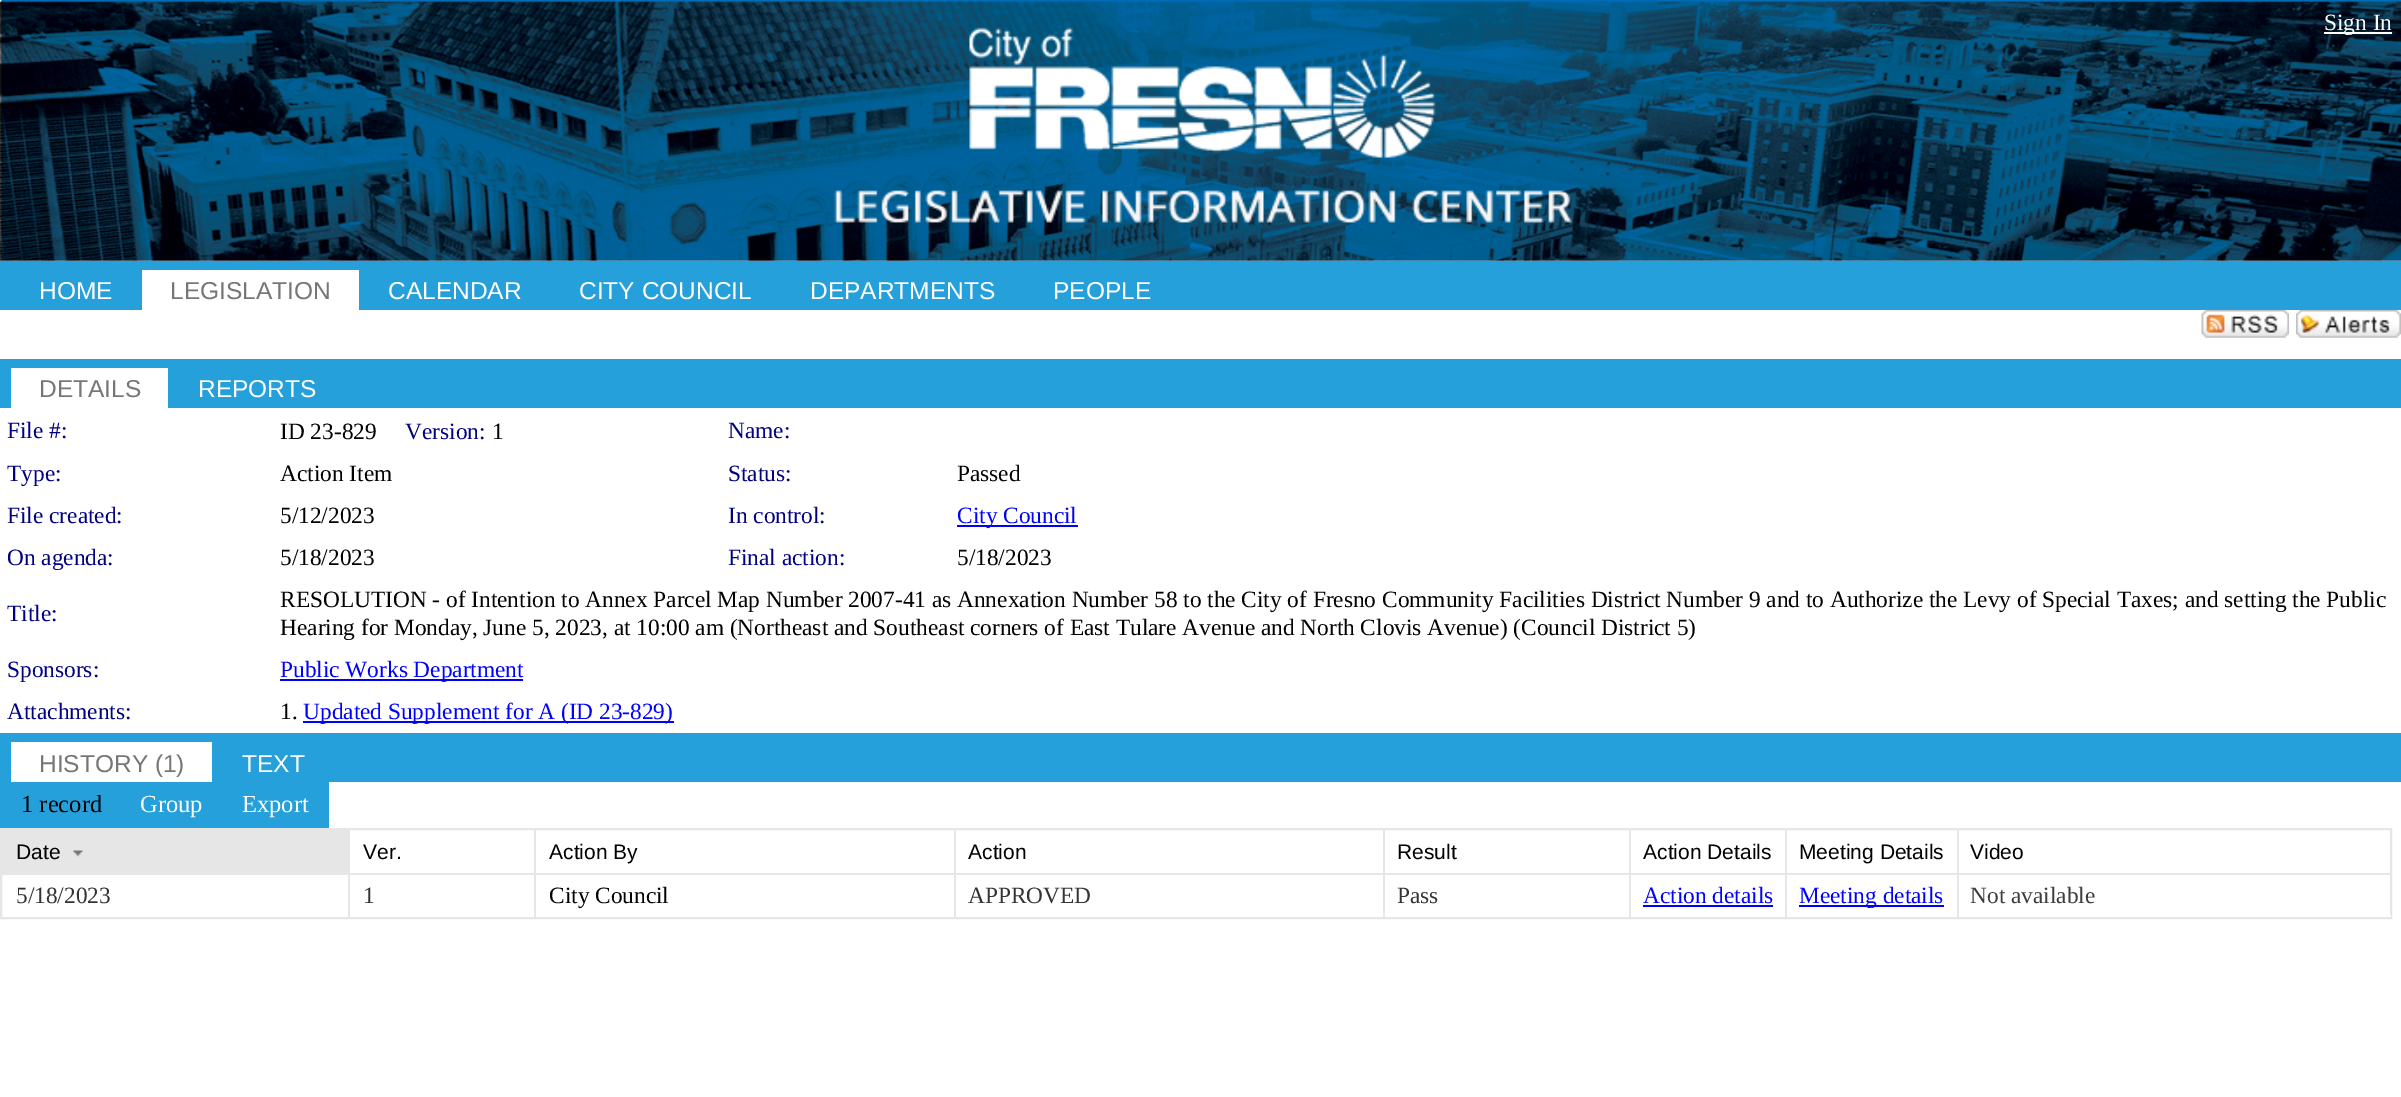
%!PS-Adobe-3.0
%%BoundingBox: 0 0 2401 1097
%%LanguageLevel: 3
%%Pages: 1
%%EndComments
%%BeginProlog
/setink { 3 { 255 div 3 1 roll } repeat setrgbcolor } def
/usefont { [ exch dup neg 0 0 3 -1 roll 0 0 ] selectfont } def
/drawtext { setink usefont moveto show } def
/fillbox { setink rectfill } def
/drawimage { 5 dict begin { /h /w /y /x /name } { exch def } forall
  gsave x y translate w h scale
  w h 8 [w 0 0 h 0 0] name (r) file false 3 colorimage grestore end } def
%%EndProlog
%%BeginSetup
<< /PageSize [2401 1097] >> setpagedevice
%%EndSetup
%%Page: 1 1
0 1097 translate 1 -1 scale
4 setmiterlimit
0 0 2401 1097 255 255 255 fillbox
(assets/img1.rgb) 0 0 2401 261 drawimage
(assets/img2.rgb) 834 27 738 196 drawimage
2324 32 68 2 255 255 255 fillbox
(Sign In) 2324 30 /LiberationSerif-Regular 23.33 255 255 255 drawtext
0 261 2401 49 37 160 218 fillbox
(HOME) 39 299 /LiberationSans-Regular 24.5 255 255 255 drawtext
142 270 217 40 255 255 255 fillbox
(LEGISLATION) 170 299 /LiberationSans-Regular 24.5 118 118 118 drawtext
(CALENDAR) 388 299 /LiberationSans-Regular 24.5 255 255 255 drawtext
(CITY COUNCIL) 579 299 /LiberationSans-Regular 24.5 255 255 255 drawtext
(DEPARTMENTS) 810 299 /LiberationSans-Regular 24.5 255 255 255 drawtext
(PEOPLE) 1053 299 /LiberationSans-Regular 24.5 255 255 255 drawtext
(assets/img3.rgb) 2201 310 88 28 drawimage
(assets/img4.rgb) 2296 310 105 28 drawimage
0 359 2401 49 37 160 218 fillbox
11 368 157 40 255 255 255 fillbox
(DETAILS) 39 397 /LiberationSans-Regular 24.5 118 118 118 drawtext
(REPORTS) 198 397 /LiberationSans-Regular 24.5 255 255 255 drawtext
(File #:) 7 438 /LiberationSerif-Regular 23.33 0 0 128 drawtext
(ID 23-829) 280 439 /LiberationSerif-Regular 23.33 0 0 0 drawtext
(Version:) 405 439 /LiberationSerif-Regular 23.33 0 0 128 drawtext
(1) 492 439 /LiberationSerif-Regular 23.33 0 0 0 drawtext
(Name:) 728 438 /LiberationSerif-Regular 23.33 0 0 128 drawtext
(Type:) 7 481 /LiberationSerif-Regular 23.33 0 0 128 drawtext
(Action Item) 280 481 /LiberationSerif-Regular 23.33 0 0 0 drawtext
(Status:) 728 481 /LiberationSerif-Regular 23.33 0 0 128 drawtext
(Passed) 957 481 /LiberationSerif-Regular 23.33 0 0 0 drawtext
(File created:) 7 523 /LiberationSerif-Regular 23.33 0 0 128 drawtext
(5/12/2023) 280 523 /LiberationSerif-Regular 23.33 0 0 0 drawtext
(In control:) 728 523 /LiberationSerif-Regular 23.33 0 0 128 drawtext
957 525 121 2 0 0 255 fillbox
(City Council) 957 523 /LiberationSerif-Regular 23.33 0 0 255 drawtext
(On agenda:) 7 565 /LiberationSerif-Regular 23.33 0 0 128 drawtext
(5/18/2023) 280 565 /LiberationSerif-Regular 23.33 0 0 0 drawtext
(Final action:) 728 565 /LiberationSerif-Regular 23.33 0 0 128 drawtext
(5/18/2023) 957 565 /LiberationSerif-Regular 23.33 0 0 0 drawtext
(Title:) 7 621 /LiberationSerif-Regular 23.33 0 0 128 drawtext
(RESOLUTION - of Intention to Annex Parcel Map Number 2007-41 as Annexation Number 58 to the City of Fresno Community Facilities District Number 9 and to Authorize the Levy of Special Taxes; and setting the Public) 280 607 /LiberationSerif-Regular 23.33 0 0 0 drawtext
(Hearing for Monday, June 5, 2023, at 10:00 am \(Northeast and Southeast corners of East Tulare Avenue and North Clovis Avenue\) \(Council District 5\)) 280 635 /LiberationSerif-Regular 23.33 0 0 0 drawtext
(Sponsors:) 7 677 /LiberationSerif-Regular 23.33 0 0 128 drawtext
280 679 243 2 0 0 255 fillbox
(Public Works Department) 280 677 /LiberationSerif-Regular 23.33 0 0 255 drawtext
(Attachments:) 7 719 /LiberationSerif-Regular 23.33 0 0 128 drawtext
(1.) 280 719 /LiberationSerif-Regular 23.33 0 0 0 drawtext
303 721 371 2 0 0 255 fillbox
(Updated Supplement for A \(ID 23-829\)) 303 719 /LiberationSerif-Regular 23.33 0 0 255 drawtext
0 733 2401 49 37 160 218 fillbox
11 742 201 40 255 255 255 fillbox
(HISTORY \(1\)) 39 772 /LiberationSans-Regular 24.5 118 118 118 drawtext
(TEXT) 242 772 /LiberationSans-Regular 24.5 255 255 255 drawtext
0 782 329 46 37 160 218 fillbox
(1 record) 21 812 /LiberationSerif-Regular 24.5 0 0 0 drawtext
(Group) 140 812 /LiberationSerif-Regular 24.5 255 255 255 drawtext
(Export) 242 812 /LiberationSerif-Regular 24.5 255 255 255 drawtext
230 230 230 setink
2 setlinewidth
1 829 2390 89 rectstroke
2 830 346 45 230 230 230 fillbox
(Date) 16 859 /LiberationSans-Regular 21 0 0 0 drawtext
(assets/img5.rgb) 73 850 10 7 drawimage
348 873 2043 2 230 230 230 fillbox
348 830 2 87 230 230 230 fillbox
(Ver.) 363 859 /LiberationSans-Regular 21 0 0 0 drawtext
534 830 2 87 230 230 230 fillbox
(Action By) 549 859 /LiberationSans-Regular 21 0 0 0 drawtext
954 830 2 87 230 230 230 fillbox
(Action) 968 859 /LiberationSans-Regular 21 0 0 0 drawtext
1383 830 2 87 230 230 230 fillbox
(Result) 1397 859 /LiberationSans-Regular 21 0 0 0 drawtext
1629 830 2 87 230 230 230 fillbox
(Action Details) 1643 859 /LiberationSans-Regular 21 0 0 0 drawtext
1785 830 2 87 230 230 230 fillbox
(Meeting Details) 1799 859 /LiberationSans-Regular 21 0 0 0 drawtext
1957 830 2 87 230 230 230 fillbox
(Video) 1970 859 /LiberationSans-Regular 21 0 0 0 drawtext
(5/18/2023) 16 903 /LiberationSerif-Regular 23.33 51 51 51 drawtext
(1) 363 903 /LiberationSerif-Regular 23.33 51 51 51 drawtext
(City Council) 549 903 /LiberationSerif-Regular 23.33 0 0 0 drawtext
(APPROVED) 968 903 /LiberationSerif-Regular 23.33 51 51 51 drawtext
(Pass) 1397 903 /LiberationSerif-Regular 23.33 51 51 51 drawtext
(Action details) 1643 903 /LiberationSerif-Regular 23.33 0 0 255 drawtext
1643 905 130 2 0 0 255 fillbox
1799 905 145 2 0 0 255 fillbox
(Meeting details) 1799 903 /LiberationSerif-Regular 23.33 0 0 255 drawtext
2390 915 1 2 255 255 255 fillbox
(Not available) 1970 903 /LiberationSerif-Regular 23.33 61 61 61 drawtext
showpage
%%EOF
